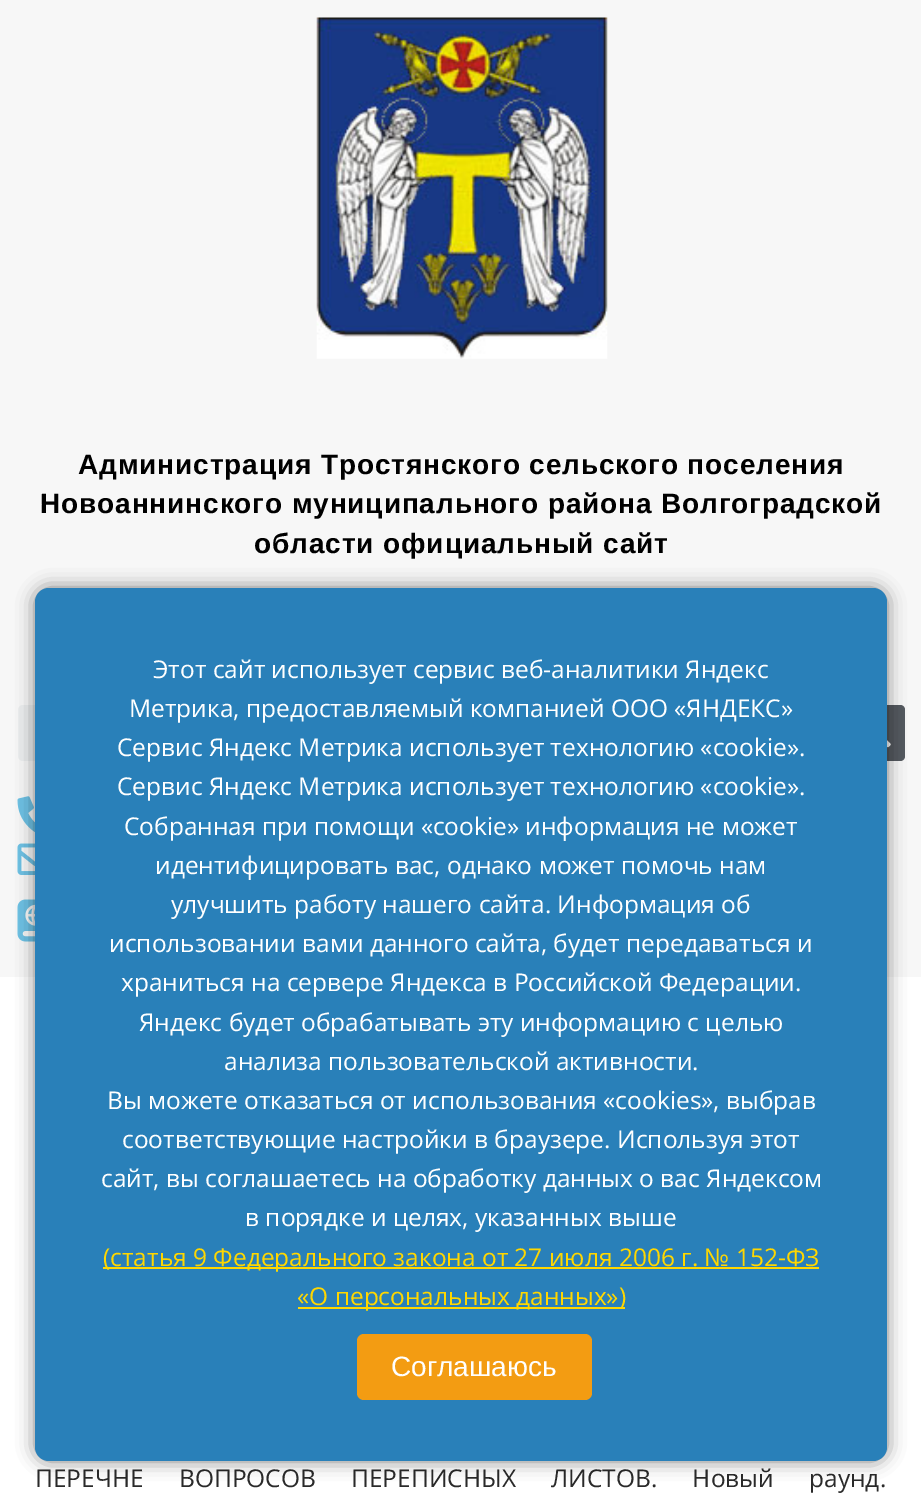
%!PS-Adobe-3.0
%%BoundingBox: 0 0 921 1496
%%LanguageLevel: 3
%%Pages: 1
%%EndComments
%%BeginProlog
/setink { 3 { 255 div 3 1 roll } repeat setrgbcolor } def
/usefont { [ exch dup neg 0 0 3 -1 roll 0 0 ] selectfont } def
/drawtext { setink usefont moveto show } def
/fillbox { setink rectfill } def
/setalpha { dup .setfillconstantalpha .setstrokeconstantalpha } def
/rrect { 5 dict begin { /r /h /w /y /x } { exch def } forall
  x r add y moveto x w add y 2 copy h add r arct x w add y h add x 1 index r arct
  x y h add x y r arct x y 2 copy exch w add exch r arct closepath end } def
/softshadow { 12 dict begin { /a /b /q /h /w /y /x } { exch def } forall gsave /was 0 def
  9 -2 -9 { dup b mul 4 div /e exch def 1 sub .425 mul 2.718 exch exp 1 add a .99 .min exch div /now exch def
    1 1 now sub 1 was sub div sub setalpha /was now def
    w h .min e 2 mul add 0 gt { x e sub y e sub w e 2 mul add h e 2 mul add
      q e add b .6 mul add w h .min 2 div e add .min 0 .max rrect fill } if } for grestore end } def
/drawimage { 5 dict begin { /h /w /y /x /name } { exch def } forall
  gsave x y translate w h scale
  w h 8 [w 0 0 h 0 0] name (r) file false 3 colorimage grestore end } def
%%EndProlog
%%BeginSetup
<< /PageSize [921 1496] /PageUsesTransparency true >> setpagedevice
%%EndSetup
%%Page: 1 1
0 .pushpdf14devicefilter
0 1496 translate 1 -1 scale
4 setmiterlimit
0 0 921 1496 247 247 247 fillbox
(assets/img1.rgb) 316 17 292 342 drawimage
/LiberationSans-Bold 28 usefont
0 0 0 setink
78 474 moveto 0.88 0 (Администрация Тростянского сельского поселения) ashow
40 513 moveto 0.88 0 (Новоаннинского муниципального района Волгоградской) ashow
254 553 moveto 0.88 0 (области официальный сайт) ashow
236 238 239 setink
18 705 887 56 5 rrect fill
84 89 95 setink
849 705 moveto 900 705 lineto 903 705 905 707 905 710 curveto 905 756 lineto 905 759 903 761 900 761 curveto 849 761 lineto closepath fill
(assets/img2.rgb) 887 740 4 8 drawimage
(assets/img3.rgb) 17 796 18 37 drawimage
(assets/img4.rgb) 17 843 18 32 drawimage
(assets/img5.rgb) 17 899 18 43 drawimage
0 977 921 519 255 255 255 fillbox
/OpenSans-Regular 24.5 usefont
42 42 42 setink
35 1487 moveto 29 0 32 (ПЕРЕЧНЕ ВОПРОСОВ ПЕРЕПИСНЫХ ЛИСТОВ. Новый раунд.) widthshow
0 0 0 setink
35 588 852 873 14 9 0.5 softshadow
41 128 185 setink
35 588 852 873 14 rrect fill
(Этот сайт использует сервис веб-аналитики Яндекс) 153 678 /OpenSans-Regular 24.5 255 255 255 drawtext
(Метрика, предоставляемый компанией ООО «ЯНДЕКС») 129 717 /OpenSans-Regular 24.5 255 255 255 drawtext
(Сервис Яндекс Метрика использует технологию «cookie».) 117 756 /OpenSans-Regular 24.5 255 255 255 drawtext
(Сервис Яндекс Метрика использует технологию «cookie».) 117 795 /OpenSans-Regular 24.5 255 255 255 drawtext
(Собранная при помощи «cookie» информация не может) 124 835 /OpenSans-Regular 24.5 255 255 255 drawtext
(идентифицировать вас, однако может помочь нам) 155 874 /OpenSans-Regular 24.5 255 255 255 drawtext
(улучшить работу нашего сайта. Информация об) 171 913 /OpenSans-Regular 24.5 255 255 255 drawtext
(использовании вами данного сайта, будет передаваться и) 109 952 /OpenSans-Regular 24.5 255 255 255 drawtext
(храниться на сервере Яндекса в Российской Федерации.) 121 991 /OpenSans-Regular 24.5 255 255 255 drawtext
(Яндекс будет обрабатывать эту информацию с целью) 139 1031 /OpenSans-Regular 24.5 255 255 255 drawtext
(анализа пользовательской активности.) 224 1070 /OpenSans-Regular 24.5 255 255 255 drawtext
(Вы можете отказаться от использования «cookies», выбрав) 107 1109 /OpenSans-Regular 24.5 255 255 255 drawtext
(соответствующие настройки в браузере. Используя этот) 122 1148 /OpenSans-Regular 24.5 255 255 255 drawtext
(сайт, вы соглашаетесь на обработку данных о вас Яндексом) 101 1187 /OpenSans-Regular 24.5 255 255 255 drawtext
(в порядке и целях, указанных выше) 245 1226 /OpenSans-Regular 24.5 255 255 255 drawtext
103 1267 716 2 255 215 0 fillbox
(\(статья 9 Федерального закона от 27 июля 2006 г. № 152-ФЗ) 103 1266 /OpenSans-Regular 24.5 255 215 0 drawtext
298 1307 327 2 255 215 0 fillbox
(«О персональных данных»\)) 297 1305 /OpenSans-Regular 24.5 255 215 0 drawtext
243 156 18 setink
357 1334 235 66 7 rrect fill
(Соглашаюсь) 391 1376 /LiberationSans-Regular 28 255 255 255 drawtext
.poppdf14devicefilter showpage
%%EOF
